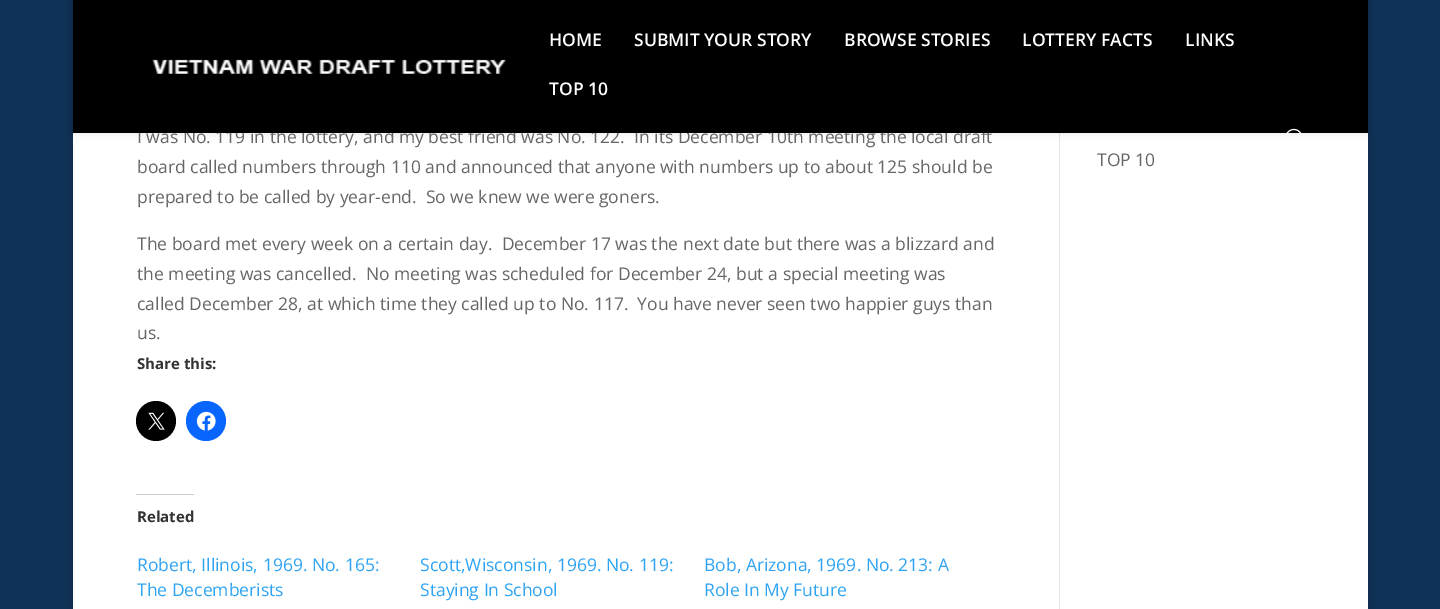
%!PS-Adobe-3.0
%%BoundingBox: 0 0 1440 609
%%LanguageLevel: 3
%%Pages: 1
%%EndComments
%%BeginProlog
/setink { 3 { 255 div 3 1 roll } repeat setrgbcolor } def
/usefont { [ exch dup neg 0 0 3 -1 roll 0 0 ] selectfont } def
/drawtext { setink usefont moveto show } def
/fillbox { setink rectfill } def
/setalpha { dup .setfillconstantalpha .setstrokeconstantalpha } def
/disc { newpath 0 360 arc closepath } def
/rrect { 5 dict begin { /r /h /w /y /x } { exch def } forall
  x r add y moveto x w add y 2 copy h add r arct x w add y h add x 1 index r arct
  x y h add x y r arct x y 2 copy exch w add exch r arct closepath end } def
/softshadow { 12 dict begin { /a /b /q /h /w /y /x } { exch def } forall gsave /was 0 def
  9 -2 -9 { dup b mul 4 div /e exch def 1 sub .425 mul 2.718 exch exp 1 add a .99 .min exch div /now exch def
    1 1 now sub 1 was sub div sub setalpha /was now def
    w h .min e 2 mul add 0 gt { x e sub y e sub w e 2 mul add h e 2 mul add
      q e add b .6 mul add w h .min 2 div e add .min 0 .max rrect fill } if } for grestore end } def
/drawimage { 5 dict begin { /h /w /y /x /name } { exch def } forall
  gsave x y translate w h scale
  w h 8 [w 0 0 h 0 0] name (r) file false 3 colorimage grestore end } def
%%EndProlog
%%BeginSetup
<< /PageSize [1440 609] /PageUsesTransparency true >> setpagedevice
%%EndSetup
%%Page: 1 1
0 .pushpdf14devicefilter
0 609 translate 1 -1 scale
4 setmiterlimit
0 0 1440 609 15 50 89 fillbox
0 0 0 setink
73 -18 1295 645 0 6 0.2 softshadow
73 133 1295 476 255 255 255 fillbox
1059 133 1 476 226 226 226 fillbox
0 0 0 setink
73 0 1295 133 0 4.5 0.1 softshadow
(I was No. 119 in the lottery, and my best friend was No. 122.  In its December 10th meeting the local draft) 137 143 /OpenSans-Regular 17.5 102 102 102 drawtext
73 0 1295 133 0 0 0 fillbox
(assets/img1.rgb) 152 59 354 15 drawimage
(HOME) 549 46 /OpenSans-SemiBold 17.5 255 255 255 drawtext
(SUBMIT YOUR STORY) 634 46 /OpenSans-SemiBold 17.5 255 255 255 drawtext
(BROWSE STORIES) 844 46 /OpenSans-SemiBold 17.5 255 255 255 drawtext
(LOTTERY FACTS) 1022 46 /OpenSans-SemiBold 17.5 255 255 255 drawtext
(LINKS) 1185 46 /OpenSans-SemiBold 17.5 255 255 255 drawtext
(TOP 10) 549 95 /OpenSans-SemiBold 17.5 255 255 255 drawtext
(assets/img2.rgb) 1286 128 16 9 drawimage
(board called numbers through 110 and announced that anyone with numbers up to about 125 should be) 137 173 /OpenSans-Regular 17.5 102 102 102 drawtext
(prepared to be called by year-end.  So we knew we were goners.) 137 203 /OpenSans-Regular 17.5 102 102 102 drawtext
(The board met every week on a certain day.  December 17 was the next date but there was a blizzard and) 137 250 /OpenSans-Regular 17.5 102 102 102 drawtext
(the meeting was cancelled.  No meeting was scheduled for December 24, but a special meeting was) 137 280 /OpenSans-Regular 17.5 102 102 102 drawtext
(called December 28, at which time they called up to No. 117.  You have never seen two happier guys than) 137 310 /OpenSans-Regular 17.5 102 102 102 drawtext
(us.) 137 339 /OpenSans-Regular 17.5 102 102 102 drawtext
(Share this:) 137 369 /OpenSans-Bold 15 51 51 51 drawtext
0 0 0 setink
156 421 20 disc fill
(assets/img3.rgb) 148 412 17 18 drawimage
8 102 255 setink
206 421 20 disc fill
(assets/img4.rgb) 196 411 20 20 drawimage
136 494 58 1 204 204 204 fillbox
(Related) 137 522 /OpenSans-Bold 15 51 51 51 drawtext
(Robert, Illinois, 1969. No. 165:) 137 571 /OpenSans-Regular 17.5 46 163 242 drawtext
(The Decemberists) 137 596 /OpenSans-Regular 17.5 46 163 242 drawtext
(Scott,Wisconsin, 1969. No. 119:) 420 571 /OpenSans-Regular 17.5 46 163 242 drawtext
(Staying In School) 420 596 /OpenSans-Regular 17.5 46 163 242 drawtext
(Bob, Arizona, 1969. No. 213: A) 704 571 /OpenSans-Regular 17.5 46 163 242 drawtext
(Role In My Future) 704 596 /OpenSans-Regular 17.5 46 163 242 drawtext
(TOP 10) 1097 166 /OpenSans-Regular 17.5 102 102 102 drawtext
.poppdf14devicefilter showpage
%%EOF
